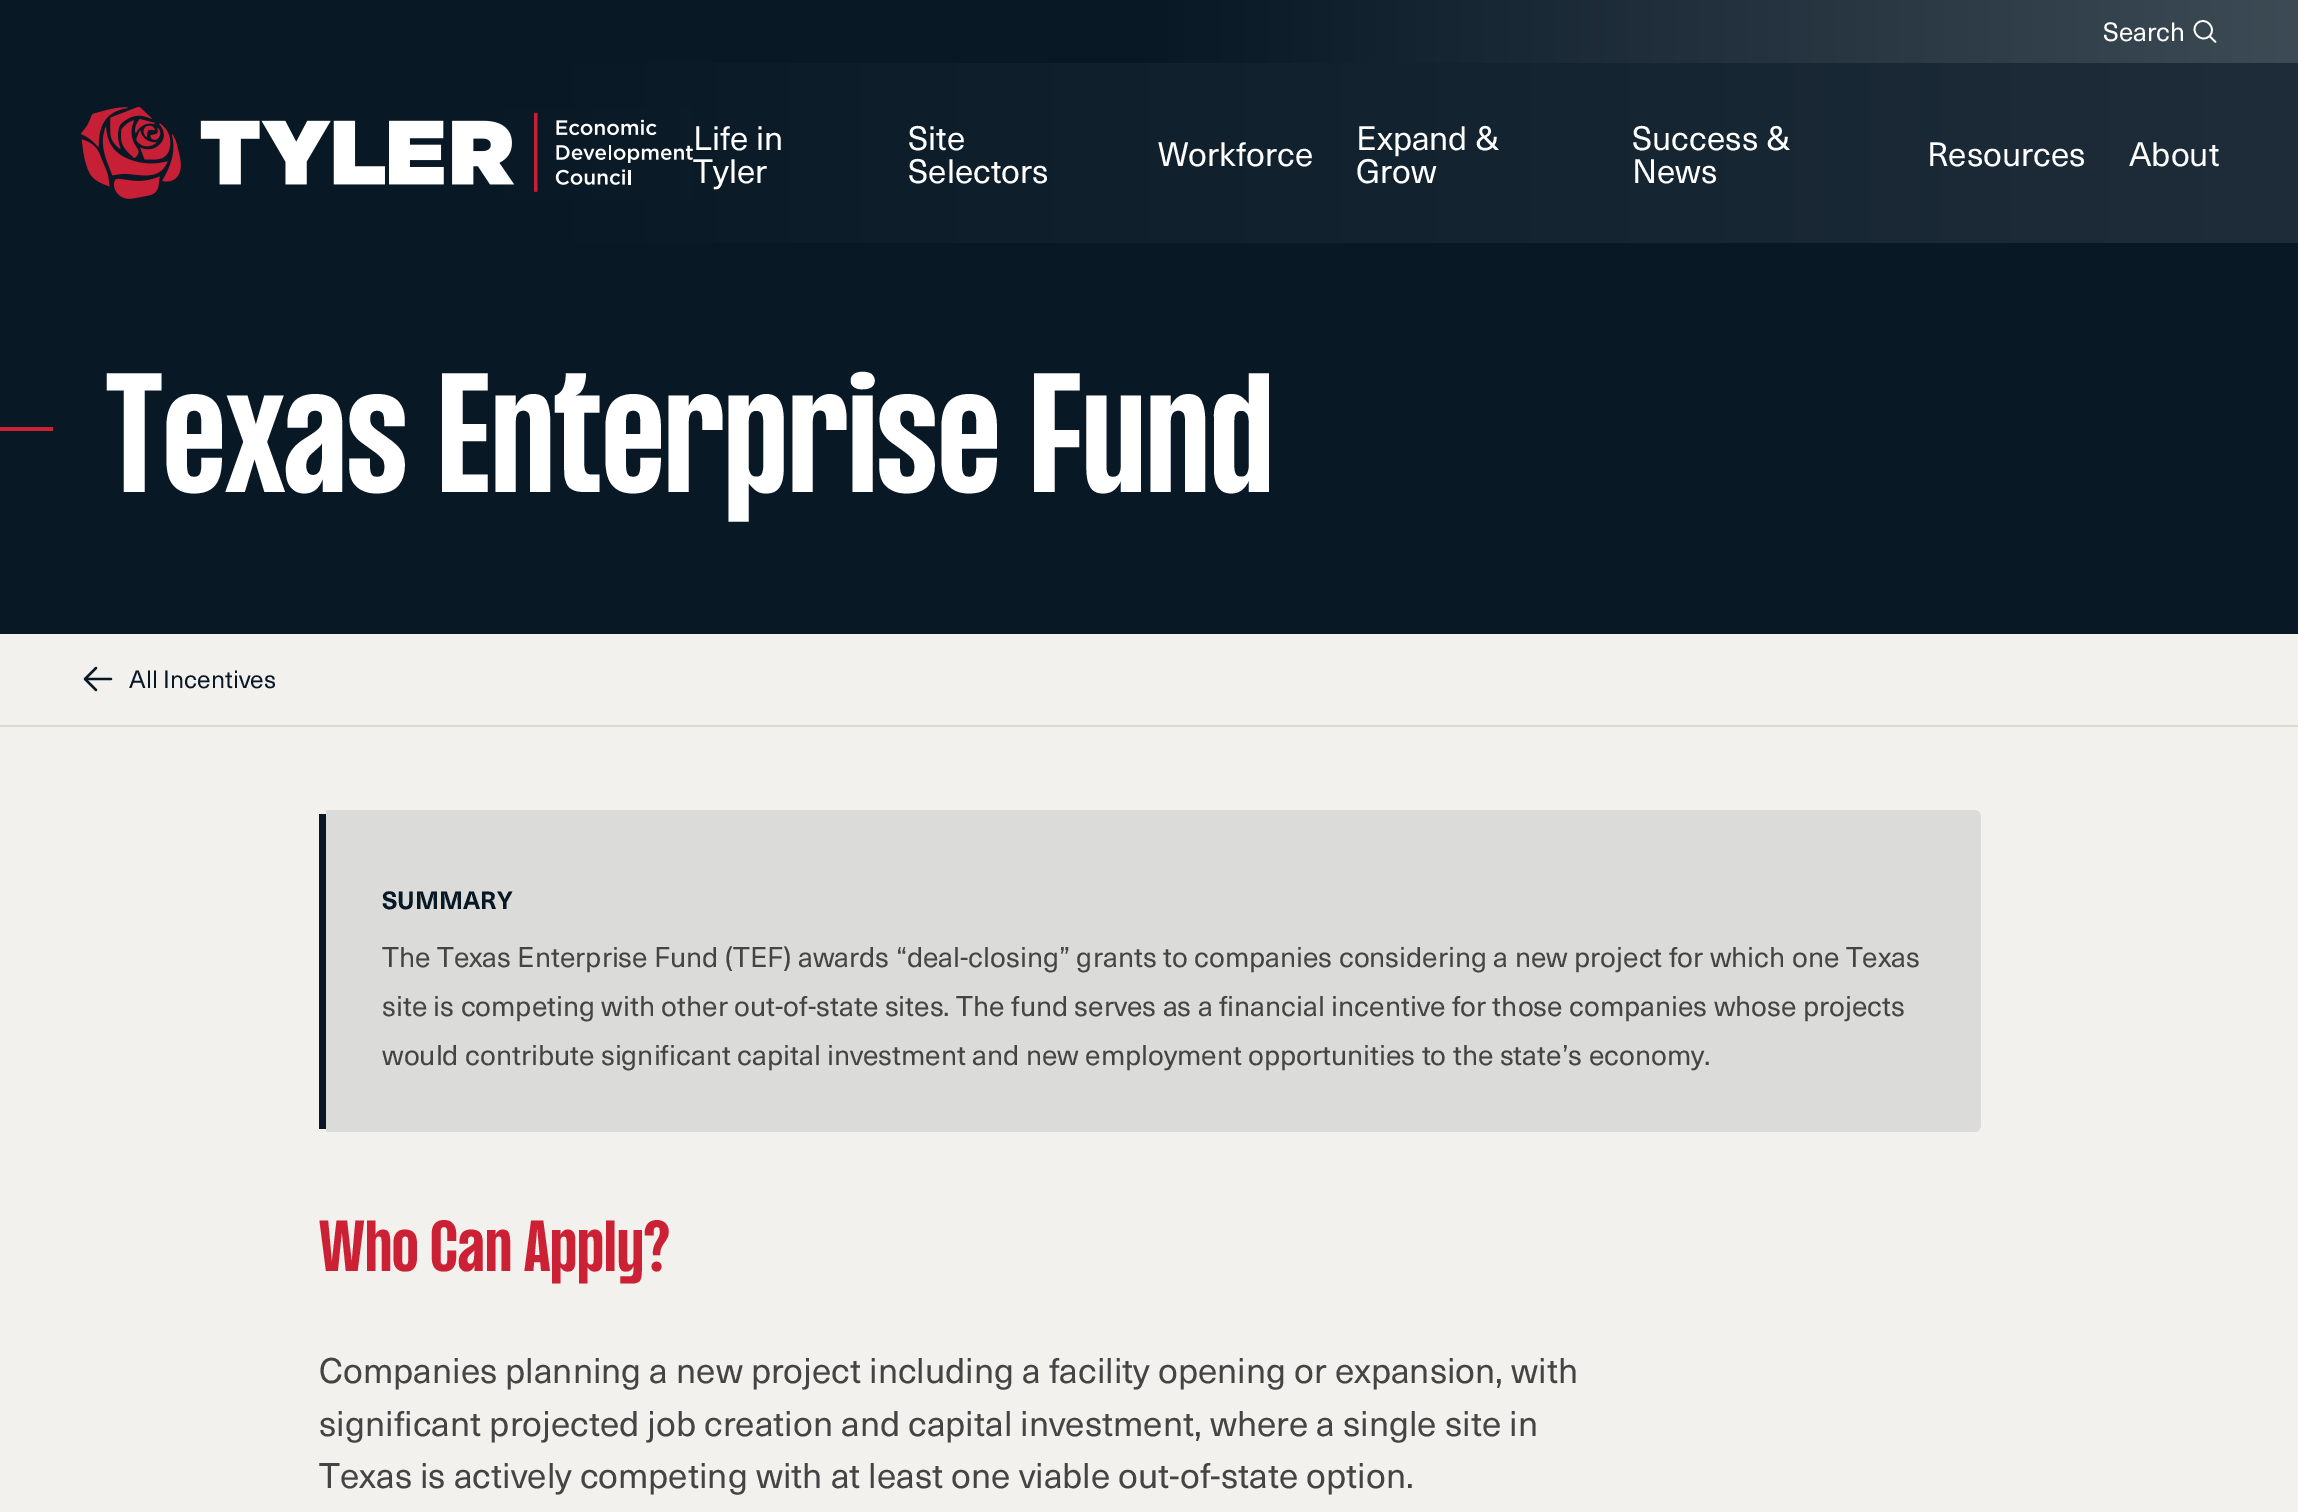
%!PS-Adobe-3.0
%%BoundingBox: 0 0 2298 1512
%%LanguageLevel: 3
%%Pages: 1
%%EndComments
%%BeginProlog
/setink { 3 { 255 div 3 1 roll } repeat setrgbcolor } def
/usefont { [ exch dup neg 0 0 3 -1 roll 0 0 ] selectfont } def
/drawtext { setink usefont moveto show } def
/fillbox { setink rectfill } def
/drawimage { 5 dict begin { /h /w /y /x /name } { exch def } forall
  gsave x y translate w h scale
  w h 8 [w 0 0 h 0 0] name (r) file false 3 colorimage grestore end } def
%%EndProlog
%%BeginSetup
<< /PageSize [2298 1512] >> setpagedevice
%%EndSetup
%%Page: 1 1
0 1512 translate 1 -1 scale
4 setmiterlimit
0 0 2298 1512 243 241 237 fillbox
0 243 2298 391 8 24 37 fillbox
gsave 0 0 moveto 2298 0 lineto 2298 63 lineto 0 63 lineto closepath clip newpath
<< /ShadingType 2 /ColorSpace /DeviceRGB /Coords [0 32 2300 31] /Extend [true true] /Function << /FunctionType 3 /Domain [0 1] /Functions [<< /FunctionType 2 /Domain [0 1] /C0 [0.031 0.094 0.145] /C1 [0.031 0.094 0.145] /N 1 >> << /FunctionType 2 /Domain [0 1] /C0 [0.031 0.094 0.145] /C1 [0.239 0.294 0.333] /N 1 >>] /Bounds [0.5] /Encode [0 1 0 1] >> >> shfill grestore
(Search) 2103 41 /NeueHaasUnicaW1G-Regular 26 255 255 255 drawtext
1.7 setlinewidth
1 setlinecap
1 setlinejoin
2215.5 42 moveto 2209.5 36 lineto 2209.5 36 moveto 2217.5 28 2205 15.5 2197 23.5 curveto 2189 31.5 2201.5 44 2209.5 36 curveto closepath stroke
gsave 0 63 moveto 2298 63 lineto 2298 243 lineto 0 243 lineto closepath clip newpath
<< /ShadingType 2 /ColorSpace /DeviceRGB /Coords [0 153 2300 153] /Extend [true true] /Function << /FunctionType 3 /Domain [0 1] /Functions [<< /FunctionType 2 /Domain [0 1] /C0 [0.031 0.094 0.145] /C1 [0.031 0.094 0.145] /N 1 >> << /FunctionType 2 /Domain [0 1] /C0 [0.031 0.094 0.145] /C1 [0.118 0.176 0.224] /N 1 >>] /Bounds [0.2] /Encode [0 1 0 1] >> >> shfill grestore
(assets/img1.rgb) 81 107 612 92 drawimage
(Life in) 693 150 /NeueHaasUnicaW1G-Regular 33.25 255 255 255 drawtext
(Tyler) 693 183 /NeueHaasUnicaW1G-Regular 33.25 255 255 255 drawtext
(Site) 908 150 /NeueHaasUnicaW1G-Regular 33.25 255 255 255 drawtext
(Selectors) 908 183 /NeueHaasUnicaW1G-Regular 33.25 255 255 255 drawtext
(Workforce) 1158 166 /NeueHaasUnicaW1G-Regular 33.25 255 255 255 drawtext
(Expand &) 1356 150 /NeueHaasUnicaW1G-Regular 33.25 255 255 255 drawtext
(Grow) 1356 183 /NeueHaasUnicaW1G-Regular 33.25 255 255 255 drawtext
(Success &) 1632 150 /NeueHaasUnicaW1G-Regular 33.25 255 255 255 drawtext
(News) 1632 183 /NeueHaasUnicaW1G-Regular 33.25 255 255 255 drawtext
(Resources) 1927 166 /NeueHaasUnicaW1G-Regular 33.25 255 255 255 drawtext
(About) 2129 166 /NeueHaasUnicaW1G-Regular 33.25 255 255 255 drawtext
0 427 53 4 204 32 52 fillbox
(Texas Enterprise Fund) 105 492 /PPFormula-Bold 148.75 255 255 255 drawtext
0 725 2298 2 223 218 205 fillbox
8 24 37 setink
2.2 setlinewidth
96 690 moveto 85 679 lineto 85 679 moveto 96 668 lineto 85 679 moveto 111 679 lineto stroke
(All Incentives) 129 688 /NeueHaasUnicaW1G-Regular 24.5 8 24 37 drawtext
319 814 7 315 8 24 38 fillbox
219 219 218 setink
1976 1132 moveto 326 1132 lineto 326 810 lineto 1974 810 lineto 1978 810 1981 813 1981 817 curveto 1981 1125 lineto 1981 1128 1979 1131 1976 1132 curveto closepath fill
(SUMMARY) 382 909 /NeueHaasUnicaW1G-Bold 24.5 8 24 37 drawtext
(The Texas Enterprise Fund \(TEF\) awards “deal-closing” grants to companies considering a new project for which one Texas) 382 967 /NeueHaasUnicaW1G-Regular 28 68 68 68 drawtext
(site is competing with other out-of-state sites. The fund serves as a financial incentive for those companies whose projects) 382 1016 /NeueHaasUnicaW1G-Regular 28 68 68 68 drawtext
(would contribute significant capital investment and new employment opportunities to the state’s economy.) 382 1065 /NeueHaasUnicaW1G-Regular 28 68 68 68 drawtext
(Who Can Apply?) 319 1271 /PPFormula-Bold 63 204 32 52 drawtext
(Companies planning a new project including a facility opening or expansion, with) 319 1383 /NeueHaasUnicaW1G-Regular 35 68 68 68 drawtext
(significant projected job creation and capital investment, where a single site in) 319 1436 /NeueHaasUnicaW1G-Regular 35 68 68 68 drawtext
(Texas is actively competing with at least one viable out-of-state option.) 319 1488 /NeueHaasUnicaW1G-Regular 35 68 68 68 drawtext
showpage
%%EOF
